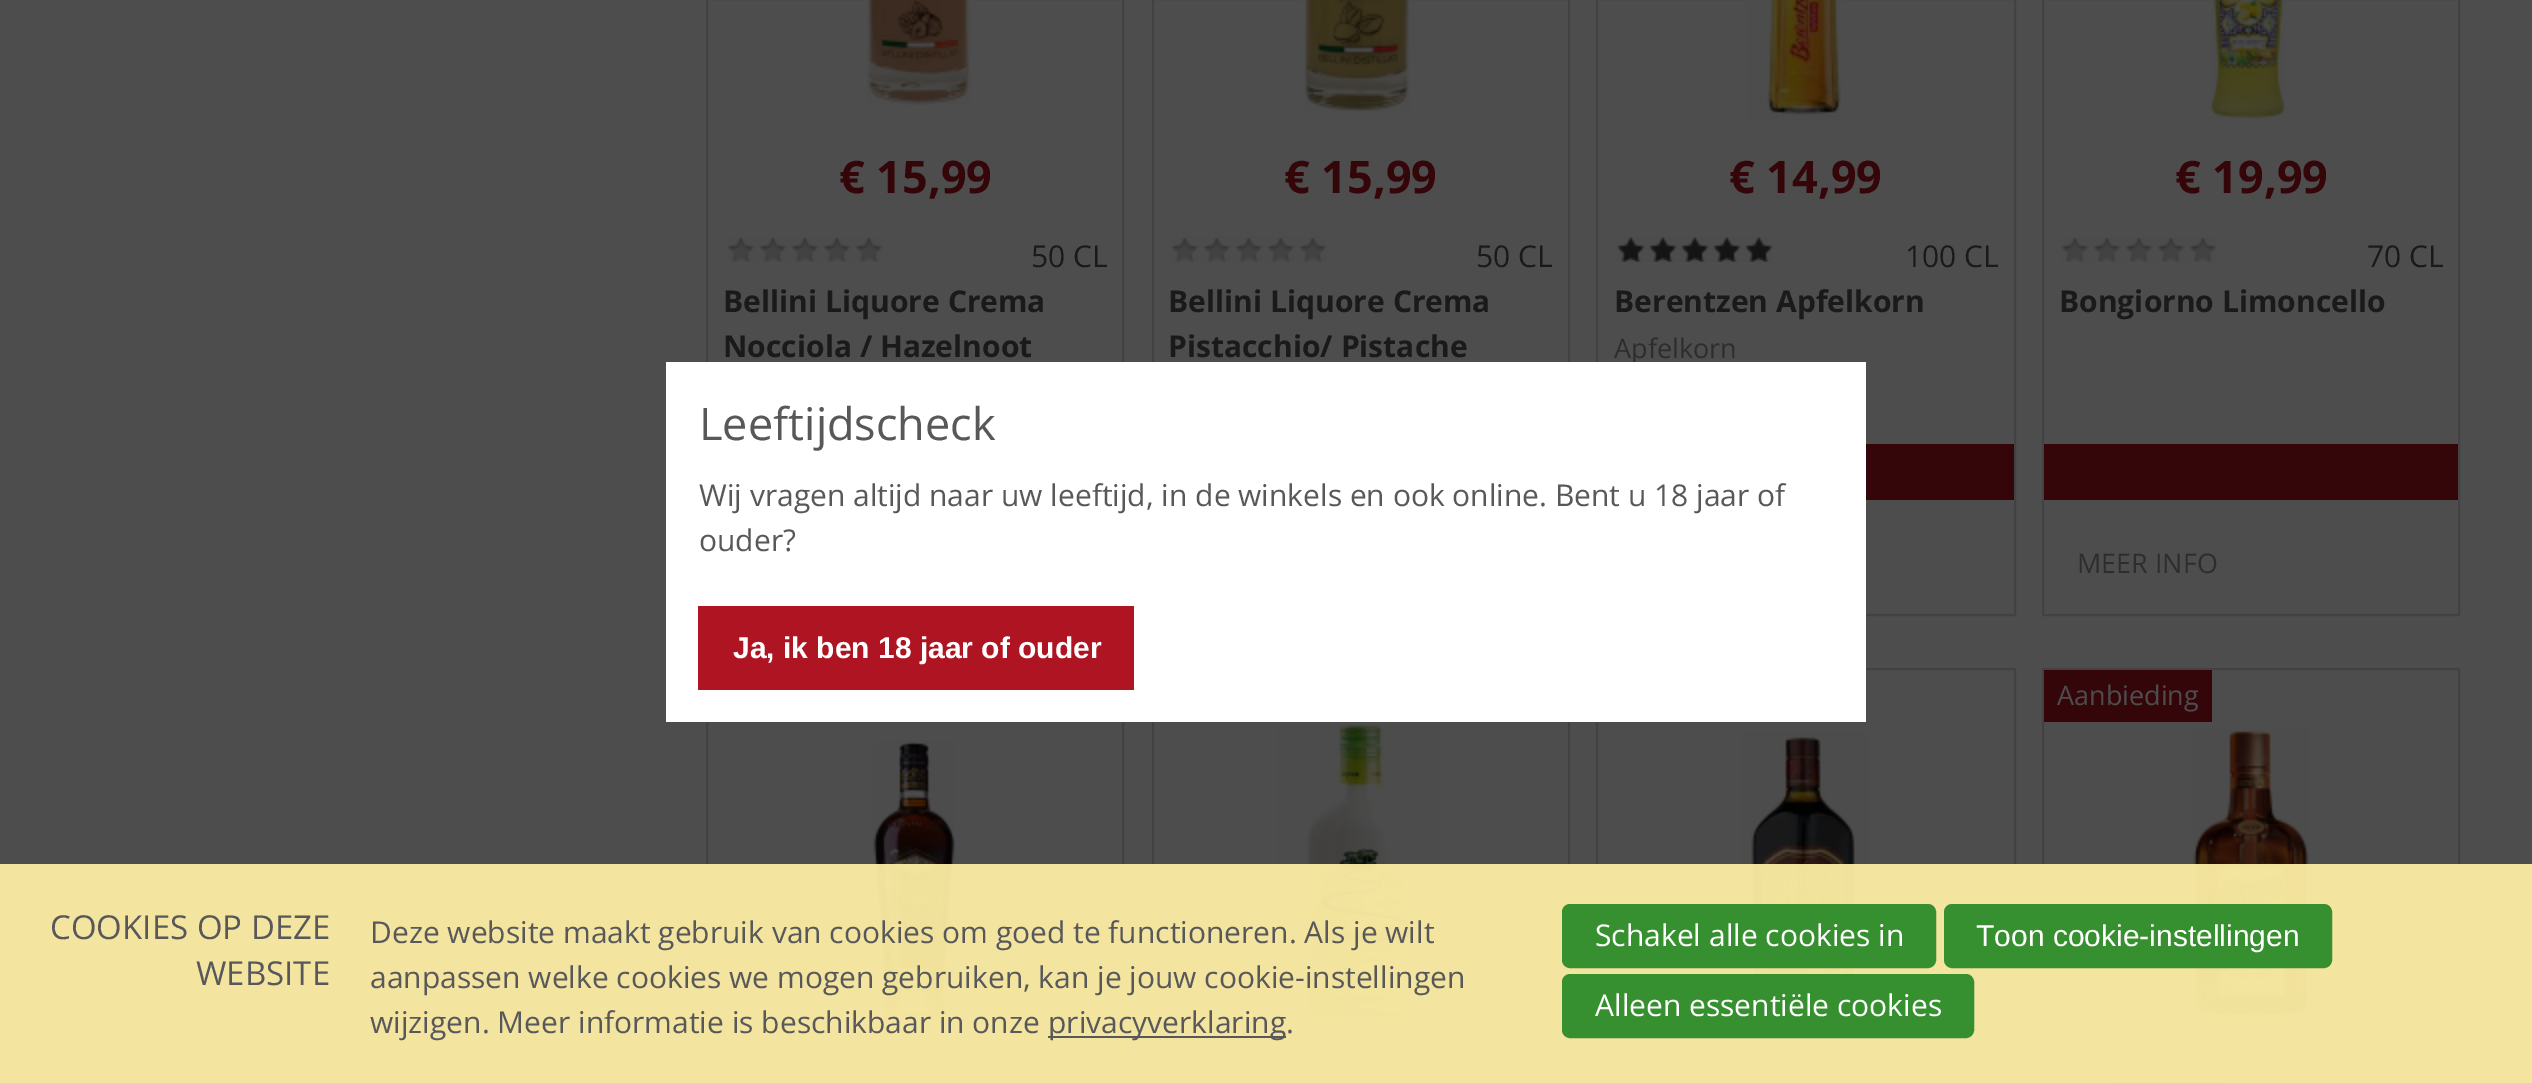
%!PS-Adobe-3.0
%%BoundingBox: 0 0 2532 1083
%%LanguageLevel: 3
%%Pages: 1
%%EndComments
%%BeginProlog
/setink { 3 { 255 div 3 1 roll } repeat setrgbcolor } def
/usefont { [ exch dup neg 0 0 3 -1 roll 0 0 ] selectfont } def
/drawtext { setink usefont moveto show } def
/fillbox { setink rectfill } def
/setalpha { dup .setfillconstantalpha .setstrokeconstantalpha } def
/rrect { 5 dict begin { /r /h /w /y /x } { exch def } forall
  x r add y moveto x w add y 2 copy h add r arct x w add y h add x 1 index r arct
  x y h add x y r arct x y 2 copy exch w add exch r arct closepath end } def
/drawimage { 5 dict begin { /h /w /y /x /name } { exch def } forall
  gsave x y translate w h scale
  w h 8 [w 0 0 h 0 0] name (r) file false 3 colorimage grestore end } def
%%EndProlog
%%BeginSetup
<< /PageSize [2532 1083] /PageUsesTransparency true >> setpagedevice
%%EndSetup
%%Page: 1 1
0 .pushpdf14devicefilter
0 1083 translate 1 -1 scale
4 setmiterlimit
0 0 2532 1083 77 77 77 fillbox
66 66 67 setink
2 setlinewidth
707 -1 416 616 rectstroke
(assets/img1.rgb) 867 0 104 105 drawimage
(€ 15,99) 839 193 /OpenSans-Bold 45 52 6 10 drawtext
(assets/img2.rgb) 727 237 156 25 drawimage
(50 CL) 1031 267 /OpenSans-Regular 30 26 26 27 drawtext
(Bellini Liquore Crema) 723 312 /OpenSans-Bold 30 26 26 27 drawtext
(Nocciola / Hazelnoot) 723 357 /OpenSans-Bold 30 26 26 27 drawtext
66 66 67 setink
1153 -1 416 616 rectstroke
(assets/img3.rgb) 1303 0 107 113 drawimage
(€ 15,99) 1284 193 /OpenSans-Bold 45 52 6 10 drawtext
(assets/img2.rgb) 1171 237 156 25 drawimage
(50 CL) 1476 267 /OpenSans-Regular 30 26 26 27 drawtext
(Bellini Liquore Crema) 1168 312 /OpenSans-Bold 30 26 26 27 drawtext
(Pistacchio/ Pistache) 1168 357 /OpenSans-Bold 30 26 26 27 drawtext
66 66 67 setink
1597 -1 418 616 rectstroke
(assets/img4.rgb) 1746 0 95 120 drawimage
(€ 14,99) 1729 193 /OpenSans-Bold 45 52 6 10 drawtext
(assets/img2.rgb) 1617 237 156 25 drawimage
(assets/img5.rgb) 1617 237 156 25 drawimage
(100 CL) 1905 267 /OpenSans-Regular 30 26 26 27 drawtext
(Berentzen Apfelkorn) 1614 312 /OpenSans-Bold 30 26 26 27 drawtext
(Apfelkorn) 1614 358 /OpenSans-Regular 27 44 45 46 drawtext
1866 444 148 56 52 6 10 fillbox
66 66 67 setink
2043 -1 416 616 rectstroke
(assets/img6.rgb) 2211 0 74 119 drawimage
(€ 19,99) 2175 193 /OpenSans-Bold 45 52 6 10 drawtext
(assets/img2.rgb) 2061 237 156 25 drawimage
(70 CL) 2367 267 /OpenSans-Regular 30 26 26 27 drawtext
(Bongiorno Limoncello) 2059 312 /OpenSans-Bold 30 26 26 27 drawtext
2044 444 414 56 52 6 10 fillbox
(MEER INFO) 2077 573 /OpenSans-Regular 27 44 45 46 drawtext
66 66 67 setink
707 669 416 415 rectstroke
(assets/img7.rgb) 873 741 82 281 drawimage
1153 669 416 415 rectstroke
(assets/img8.rgb) 1277 724 164 298 drawimage
1597 669 418 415 rectstroke
(assets/img9.rgb) 1741 732 129 242 drawimage
2043 669 416 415 rectstroke
2044 670 168 52 52 6 10 fillbox
(Aanbieding) 2057 705 /OpenSans-Regular 27 77 77 77 drawtext
(assets/img10.rgb) 2193 729 116 286 drawimage
2116 1082 106 1 44 45 46 fillbox
666 362 1200 360 255 255 255 fillbox
(Leeftijdscheck) 699 440 /OpenSans-Regular 45 88 88 90 drawtext
(Wij vragen altijd naar uw leeftijd, in de winkels en ook online. Bent u 18 jaar of) 699 506 /OpenSans-Regular 30 88 88 90 drawtext
(ouder?) 699 551 /OpenSans-Regular 30 88 88 90 drawtext
698 606 436 84 174 20 33 fillbox
(Ja, ik ben 18 jaar of ouder) 733 658 /LiberationSans-Bold 30 255 255 255 drawtext
0.95 setalpha
0 864 2532 219 252 237 163 fillbox
1 setalpha
(COOKIES OP DEZE) 50 939 /OpenSans-Regular 33 88 88 90 drawtext
(WEBSITE) 196 985 /OpenSans-Regular 33 88 88 90 drawtext
(Deze website maakt gebruik van cookies om goed te functioneren. Als je wilt) 370 943 /OpenSans-Regular 30 88 88 90 drawtext
(aanpassen welke cookies we mogen gebruiken, kan je jouw cookie-instellingen) 370 988 /OpenSans-Regular 30 88 88 90 drawtext
(wijzigen. Meer informatie is beschikbaar in onze) 370 1033 /OpenSans-Regular 30 88 88 90 drawtext
1048 1036 238 2 88 88 90 fillbox
(privacyverklaring.) 1048 1033 /OpenSans-Regular 30 88 88 90 drawtext
55 144 47 setink
1563 905 372 62 7 rrect gsave fill grestore
stroke
(Schakel alle cookies in) 1595 946 /OpenSans-Regular 30 255 255 255 drawtext
55 144 47 setink
1945 905 386 62 7 rrect gsave fill grestore
stroke
(Toon cookie-instellingen) 1976 946 /LiberationSans-Regular 30 255 255 255 drawtext
55 144 47 setink
1563 975 410 62 7 rrect gsave fill grestore
stroke
(Alleen essentiële cookies) 1595 1016 /OpenSans-Regular 30 255 255 255 drawtext
.poppdf14devicefilter showpage
%%EOF
